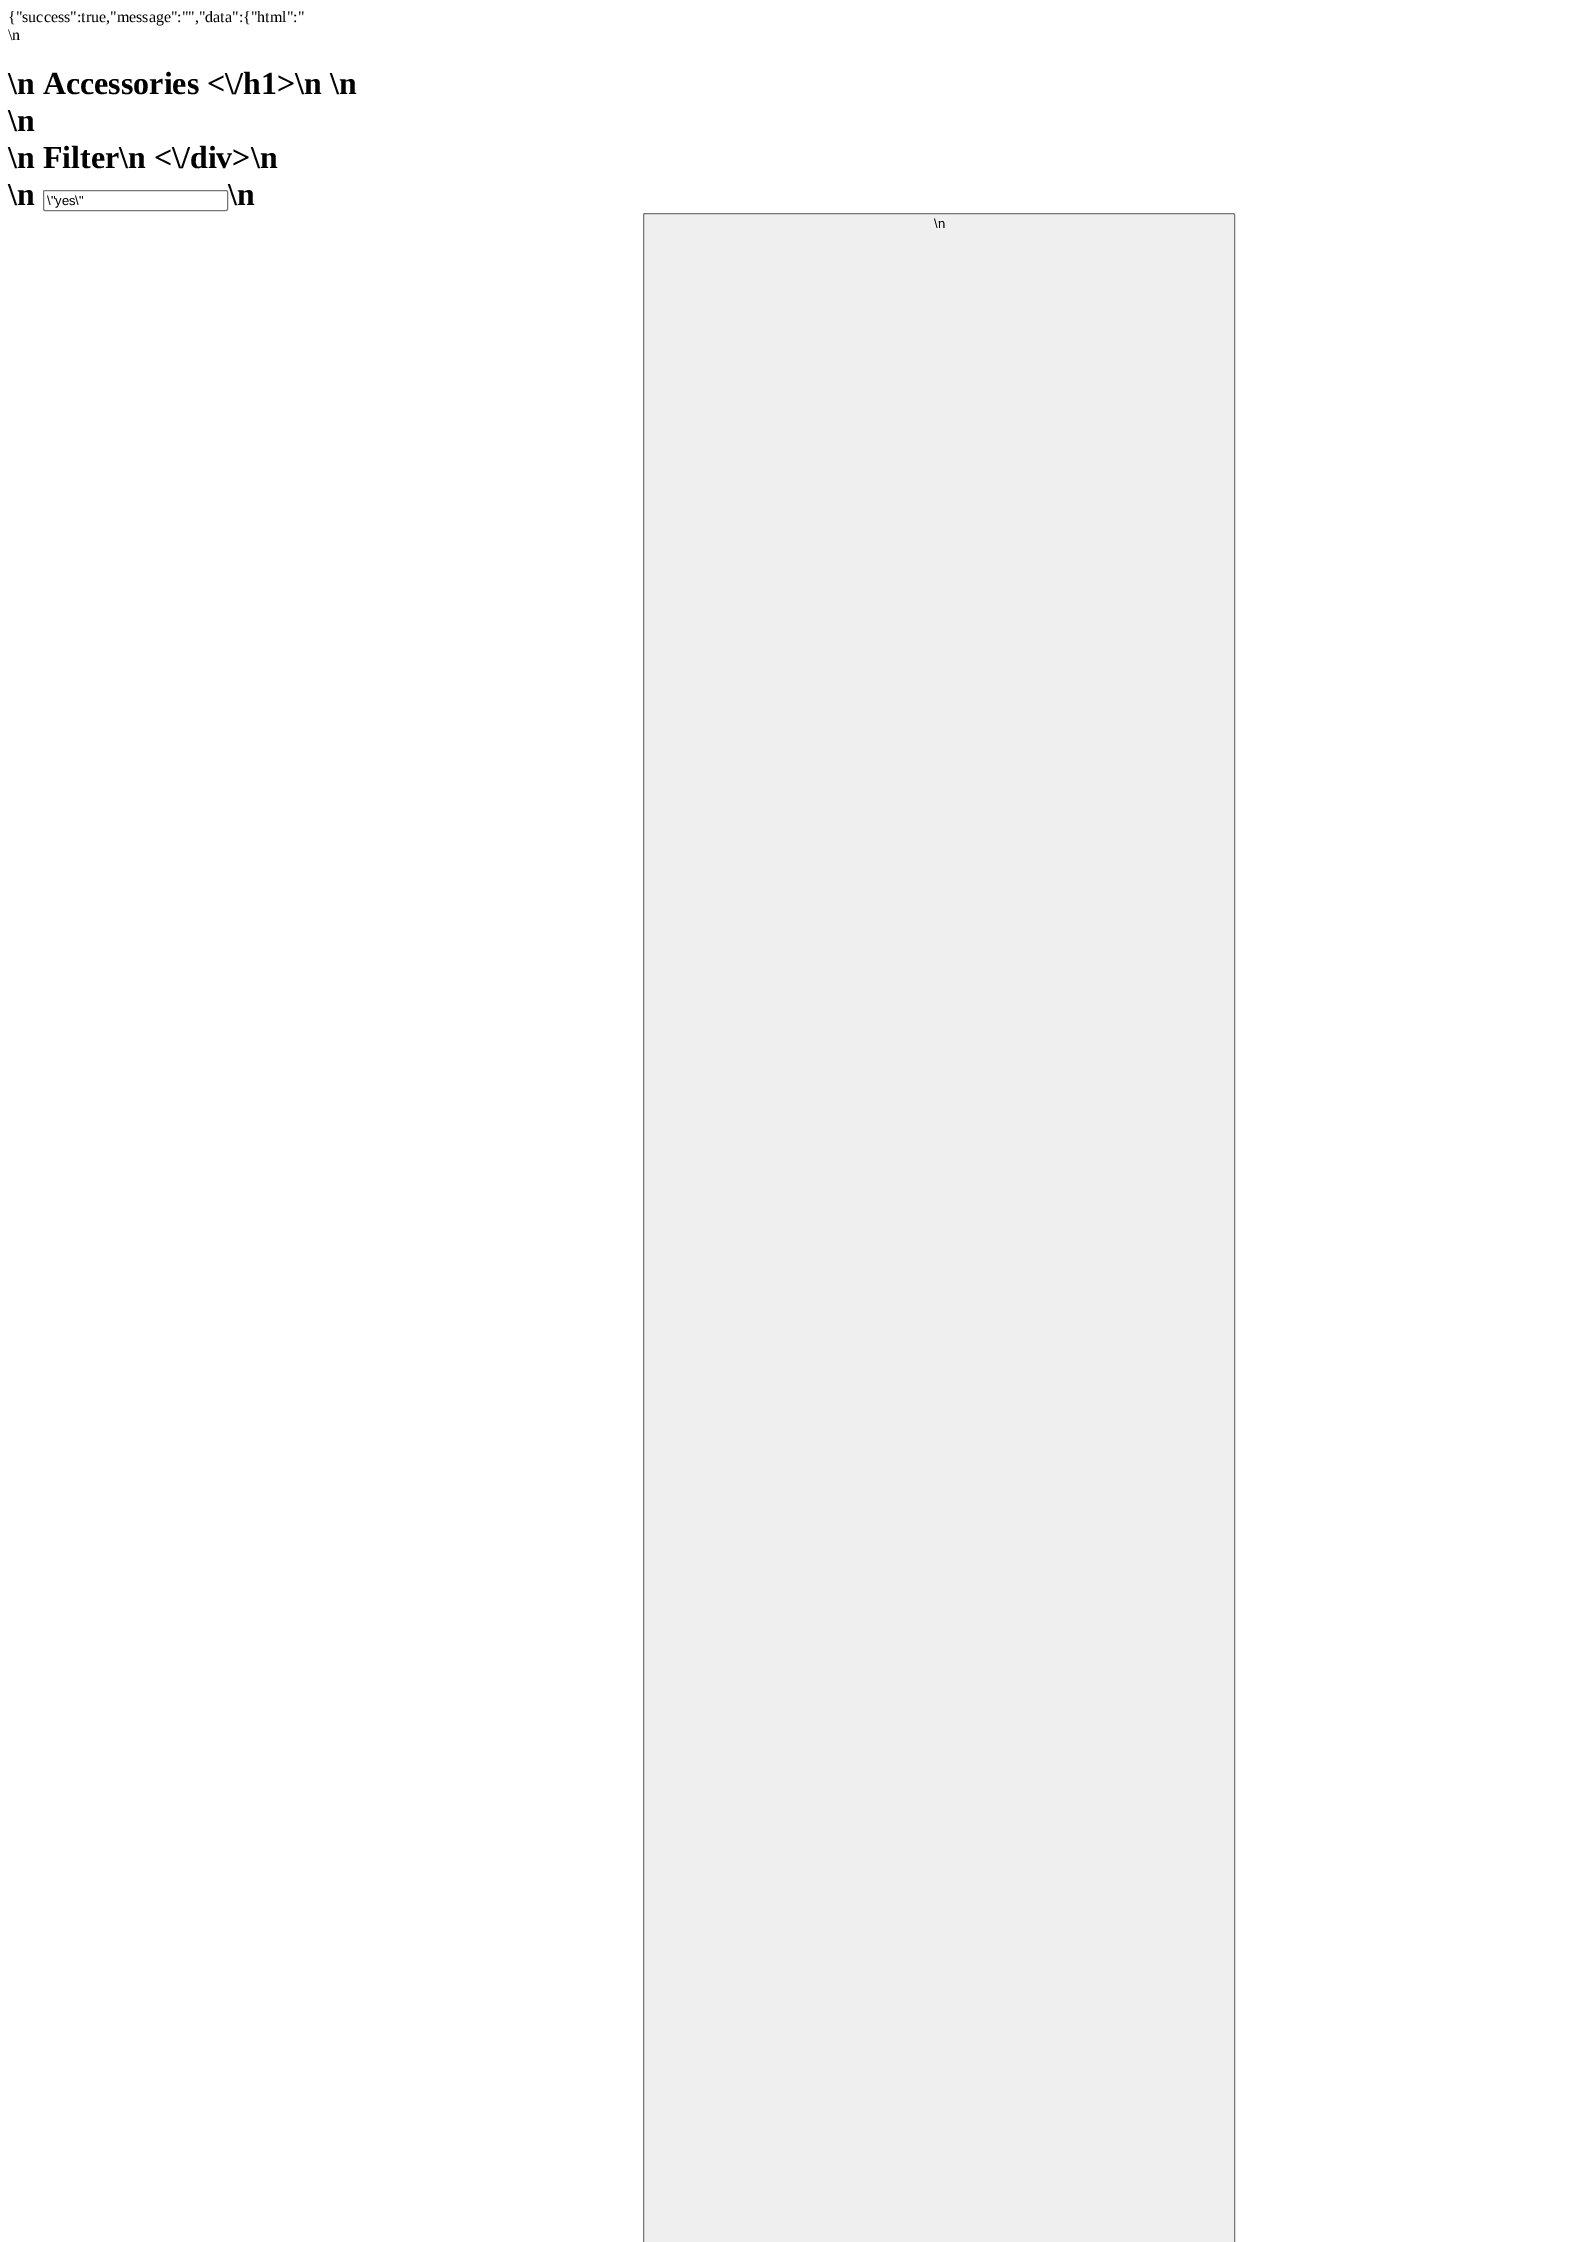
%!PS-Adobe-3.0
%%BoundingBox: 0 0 1582 2242
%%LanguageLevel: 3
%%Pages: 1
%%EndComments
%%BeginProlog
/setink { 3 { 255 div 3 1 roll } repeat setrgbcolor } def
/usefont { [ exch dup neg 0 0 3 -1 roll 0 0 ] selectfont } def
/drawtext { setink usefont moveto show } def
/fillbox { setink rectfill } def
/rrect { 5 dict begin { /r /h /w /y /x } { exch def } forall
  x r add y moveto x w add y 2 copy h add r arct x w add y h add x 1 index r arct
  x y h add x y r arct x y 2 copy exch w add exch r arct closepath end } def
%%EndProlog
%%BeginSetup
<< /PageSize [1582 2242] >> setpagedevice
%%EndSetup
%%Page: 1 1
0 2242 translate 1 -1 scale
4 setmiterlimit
0 0 1582 2242 255 255 255 fillbox
({"success":true,"message":"","data":{"html":") 8 22 /LiberationSerif-Regular 16 0 0 0 drawtext
(\\n) 8 40 /LiberationSerif-Regular 16 0 0 0 drawtext
(\\n Accessories <\\/h1>\\n \\n) 8 94 /LiberationSerif-Bold 32 0 0 0 drawtext
(\\n) 8 131 /LiberationSerif-Bold 32 0 0 0 drawtext
(\\n Filter\\n <\\/div>\\n) 8 168 /LiberationSerif-Bold 32 0 0 0 drawtext
(\\n) 8 205 /LiberationSerif-Bold 32 0 0 0 drawtext
118 118 118 setink
43.5 190.5 184 20 1.5 rrect stroke
(\\"yes\\") 47 205 /LiberationSans-Regular 13 0 0 0 drawtext
(\\n) 228 205 /LiberationSerif-Bold 32 0 0 0 drawtext
239 239 239 setink
643.5 213.5 591 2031 1.5 rrect gsave fill grestore
118 118 118 setink
stroke
(\\n) 934 228 /LiberationSans-Regular 13 0 0 0 drawtext
showpage
%%EOF
